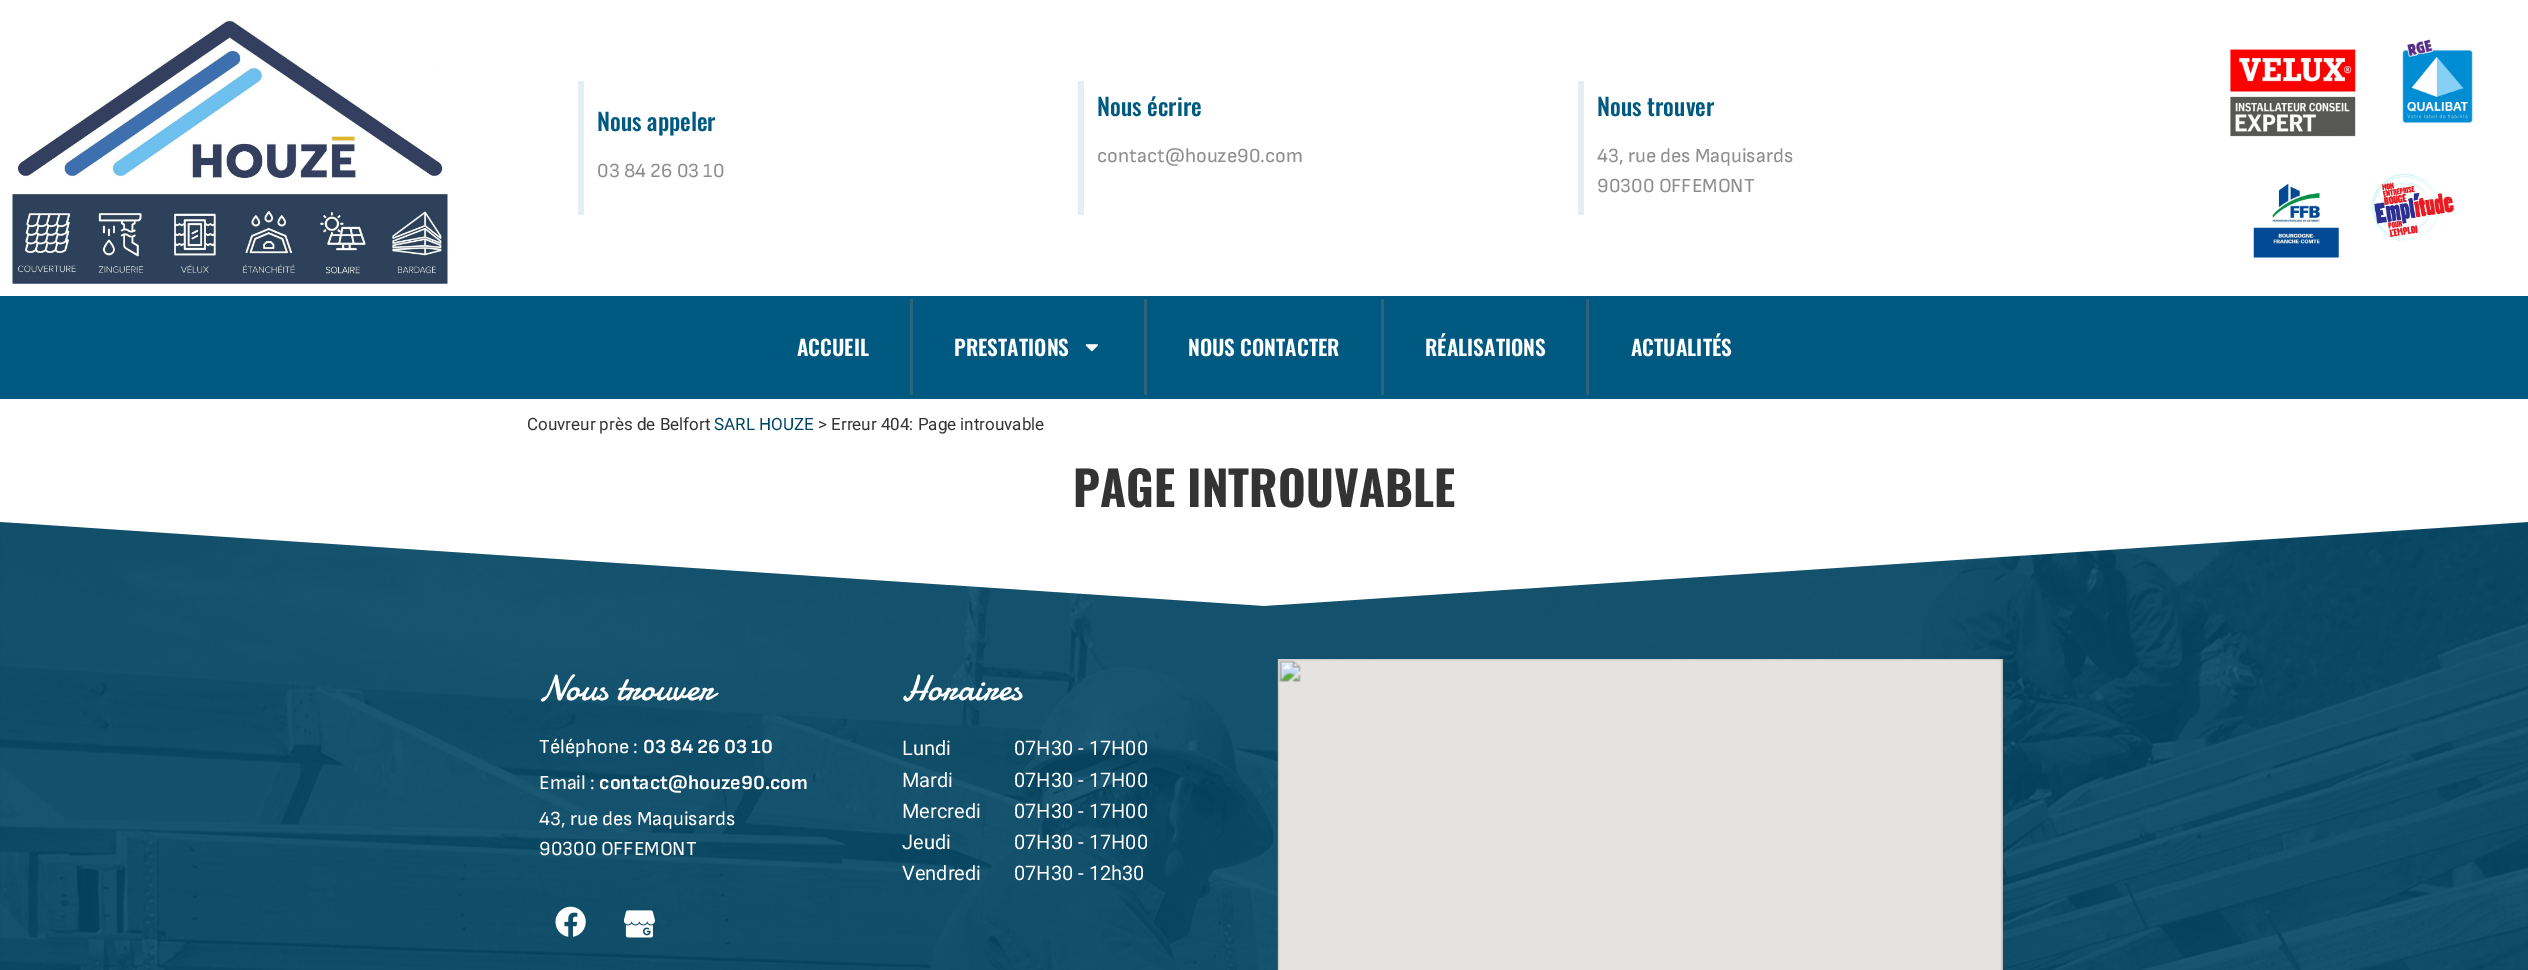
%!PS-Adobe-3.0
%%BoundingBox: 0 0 2528 970
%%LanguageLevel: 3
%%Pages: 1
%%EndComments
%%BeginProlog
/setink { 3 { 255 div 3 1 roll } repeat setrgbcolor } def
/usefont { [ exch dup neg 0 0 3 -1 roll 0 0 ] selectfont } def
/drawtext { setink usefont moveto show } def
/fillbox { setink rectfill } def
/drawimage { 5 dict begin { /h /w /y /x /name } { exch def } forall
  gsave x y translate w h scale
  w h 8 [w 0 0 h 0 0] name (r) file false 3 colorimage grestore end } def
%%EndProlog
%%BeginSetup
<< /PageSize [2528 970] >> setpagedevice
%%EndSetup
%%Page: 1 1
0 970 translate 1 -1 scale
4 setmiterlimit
0 0 2528 970 255 255 255 fillbox
(assets/img1.rgb) 12 18 436 266 drawimage
578 81 6 134 229 238 242 fillbox
(Nous appeler) 597 131 /Oswald-Medium 23.75 0 89 128 drawtext
(03 84 26 03 10) 597 177 /SofiaSans-Regular 20 142 142 142 drawtext
1078 81 6 134 229 238 242 fillbox
(Nous écrire) 1097 116 /Oswald-Medium 23.75 0 89 128 drawtext
(contact@houze90.com) 1097 162 /SofiaSans-Regular 20 142 142 142 drawtext
1578 81 6 134 229 238 242 fillbox
(Nous trouver) 1597 116 /Oswald-Medium 23.75 0 89 128 drawtext
(43, rue des Maquisards) 1597 162 /SofiaSans-Regular 20 142 142 142 drawtext
(90300 OFFEMONT) 1597 192 /SofiaSans-Regular 20 142 142 142 drawtext
(assets/img2.rgb) 2230 49 126 88 drawimage
(assets/img3.rgb) 2402 39 71 84 drawimage
(assets/img4.rgb) 2253 183 86 75 drawimage
(assets/img5.rgb) 2372 173 82 69 drawimage
0 296 2528 103 0 89 128 fillbox
(ACCUEIL) 797 356 /Oswald-SemiBold 21.25 255 255 255 drawtext
910 299 3 96 45 100 124 fillbox
(PRESTATIONS) 954 356 /Oswald-SemiBold 21.25 255 255 255 drawtext
(assets/img6.rgb) 1085 344 13 8 drawimage
1144 299 3 96 45 100 124 fillbox
(NOUS CONTACTER) 1188 356 /Oswald-SemiBold 21.25 255 255 255 drawtext
1381 299 3 96 45 100 124 fillbox
(RÉALISATIONS) 1425 356 /Oswald-SemiBold 21.25 255 255 255 drawtext
1586 299 3 96 45 100 124 fillbox
(ACTUALITÉS) 1631 356 /Oswald-SemiBold 21.25 255 255 255 drawtext
(Couvreur près de Belfort) 527 430 /Roboto-Regular 17 51 51 51 drawtext
(SARL HOUZE) 714 430 /Roboto-Regular 17 1 71 101 drawtext
(> Erreur 404: Page introuvable) 818 430 /Roboto-Regular 17 51 51 51 drawtext
(PAGE INTROUVABLE) 1073 507 /Oswald-Bold 47.5 51 51 51 drawtext
1 71 101 setink
1264 606 moveto 0 522 lineto 0 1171 lineto 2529 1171 lineto 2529 522 lineto closepath fill
(assets/img7.rgb) 0 522 2528 448 drawimage
(Nous trouver) 539 700 /Damion-Regular 36.25 255 255 255 drawtext
(Téléphone :) 539 753 /SofiaSans-Regular 20 255 255 255 drawtext
(03 84 26 03 10) 643 753 /SofiaSans-Bold 20 255 255 255 drawtext
(Email :) 539 789 /SofiaSans-Regular 20 255 255 255 drawtext
(contact@houze90.com) 599 789 /SofiaSans-Bold 20 255 255 255 drawtext
(43, rue des Maquisards) 539 825 /SofiaSans-Regular 20 255 255 255 drawtext
(90300 OFFEMONT) 539 855 /SofiaSans-Regular 20 255 255 255 drawtext
(assets/img8.rgb) 555 906 31 31 drawimage
(assets/img9.rgb) 624 910 31 28 drawimage
(Horaires) 902 700 /Damion-Regular 36.25 255 255 255 drawtext
(Lundi) 902 755 /Roboto-Regular 20 255 255 255 drawtext
(07H30 - 17H00) 1014 755 /Roboto-Regular 20 255 255 255 drawtext
(Mardi) 902 787 /Roboto-Regular 20 255 255 255 drawtext
(07H30 - 17H00) 1014 787 /Roboto-Regular 20 255 255 255 drawtext
(Mercredi) 902 818 /Roboto-Regular 20 255 255 255 drawtext
(07H30 - 17H00) 1014 818 /Roboto-Regular 20 255 255 255 drawtext
(Jeudi) 902 849 /Roboto-Regular 20 255 255 255 drawtext
(07H30 - 17H00) 1014 849 /Roboto-Regular 20 255 255 255 drawtext
(Vendredi) 902 880 /Roboto-Regular 20 255 255 255 drawtext
(07H30 - 12h30) 1014 880 /Roboto-Regular 20 255 255 255 drawtext
(assets/img10.rgb) 1277 659 726 311 drawimage
showpage
%%EOF
